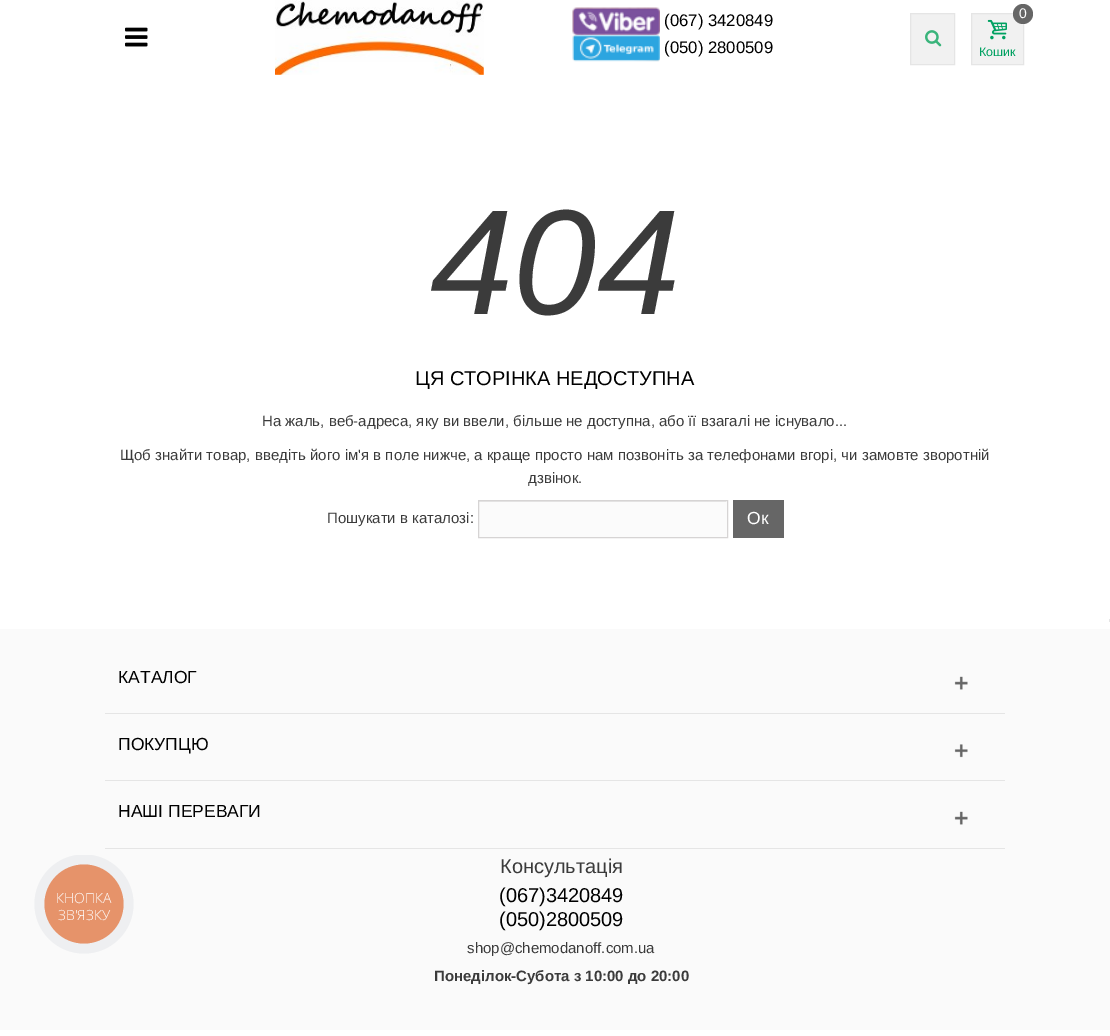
%!PS-Adobe-3.0
%%BoundingBox: 0 0 1110 1036
%%LanguageLevel: 3
%%Pages: 1
%%EndComments
%%BeginProlog
/setink { 3 { 255 div 3 1 roll } repeat setrgbcolor } def
/usefont { [ exch dup neg 0 0 3 -1 roll 0 0 ] selectfont } def
/drawtext { setink usefont moveto show } def
/fillbox { setink rectfill } def
/disc { newpath 0 360 arc closepath } def
/drawimage { 5 dict begin { /h /w /y /x /name } { exch def } forall
  gsave x y translate w h scale
  w h 8 [w 0 0 h 0 0] name (r) file false 3 colorimage grestore end } def
%%EndProlog
%%BeginSetup
<< /PageSize [1110 1036] >> setpagedevice
%%EndSetup
%%Page: 1 1
0 1036 translate 1 -1 scale
4 setmiterlimit
0 0 1110 1036 255 255 255 fillbox
(assets/img1.rgb) 125 27 23 20 drawimage
(assets/img2.rgb) 275 0 209 75 drawimage
(assets/img3.rgb) 572 7 88 28 drawimage
(\(067\) 3420849) 664 26 /LiberationSans-Regular 16.75 0 0 0 drawtext
(assets/img4.rgb) 572 35 88 27 drawimage
(\(050\) 2800509) 664 53 /LiberationSans-Regular 16.75 0 0 0 drawtext
241 241 241 setink
971.5 13.5 moveto 1023.5 13.5 lineto 1023.5 64.5 lineto 971.5 64.5 lineto closepath gsave fill grestore
229 229 229 setink
stroke
102 102 102 setink
1023 14 10 disc fill
(0) 1019 18 /LiberationSans-Regular 14 255 255 255 drawtext
(assets/img5.rgb) 987 19 20 21 drawimage
(Кошик) 979 56 /LiberationSans-Regular 12.5 0 161 97 drawtext
241 241 241 setink
910.5 13.5 moveto 954.5 13.5 lineto 954.5 64.5 lineto 910.5 64.5 lineto closepath gsave fill grestore
229 229 229 setink
stroke
(assets/img6.rgb) 925 30 17 17 drawimage
(404) 430 314 /LiberationSans-Italic 150 59 59 59 drawtext
(ЦЯ СТОРІНКА НЕДОСТУПНА) 415 385 /LiberationSans-Regular 20 0 0 0 drawtext
(На жаль, веб-адреса, яку ви ввели, більше не доступна, або її взагалі не існувало...) 262 426 /LiberationSans-Regular 15 59 59 59 drawtext
(Щоб знайти товар, введіть його ім'я в поле нижче, а краще просто нам позвоніть за телефонами вгорі, чи замовте зворотній) 120 460 /LiberationSans-Regular 15 59 59 59 drawtext
(дзвінок.) 528 483 /LiberationSans-Regular 15 59 59 59 drawtext
(Пошукати в каталозі:) 327 523 /LiberationSans-Regular 15 59 59 59 drawtext
479 501 248 36 251 251 251 fillbox
479 501 247 1 232 232 232 fillbox
214 212 212 setink
478.5 500.5 249 37 rectstroke
733 500 51 38 102 102 102 fillbox
(Ок) 747 524 /LiberationSans-Regular 17.5 255 255 255 drawtext
0 629 1110 401 250 250 250 fillbox
105 713 900 1 229 229 229 fillbox
(КАТАЛОГ) 118 683 /LiberationSans-Regular 17.5 0 0 0 drawtext
(assets/img7.rgb) 954 676 14 14 drawimage
105 780 900 1 229 229 229 fillbox
(ПОКУПЦЮ) 118 750 /LiberationSans-Regular 17.5 0 0 0 drawtext
(assets/img8.rgb) 954 744 14 14 drawimage
105 848 900 1 229 229 229 fillbox
(НАШІ ПЕРЕВАГИ) 118 817 /LiberationSans-Regular 17.5 0 0 0 drawtext
(assets/img7.rgb) 954 811 14 14 drawimage
(Консультація) 500 873 /LiberationSans-Regular 20 59 59 59 drawtext
(\(067\)3420849) 499 902 /LiberationSans-Regular 20 0 0 0 drawtext
(\(050\)2800509) 499 926 /LiberationSans-Regular 20 0 0 0 drawtext
(shop@chemodanoff.com.ua) 467 953 /LiberationSans-Regular 15 59 59 59 drawtext
(Понеділок-Субота з 10:00 до 20:00) 434 981 /LiberationSans-Bold 15 59 59 59 drawtext
1109 619 1 3 229 229 229 fillbox
gsave
34 855 100 99 rectclip
238 239 241 setink
84 904 49.5 disc fill
grestore
230 147 106 setink
84 904 39.5 disc fill
(КНОПКА) 56 903 /OpenSans-Light 14 255 255 255 drawtext
(ЗВ'ЯЗКУ) 58 920 /OpenSans-Light 14 255 255 255 drawtext
showpage
%%EOF
